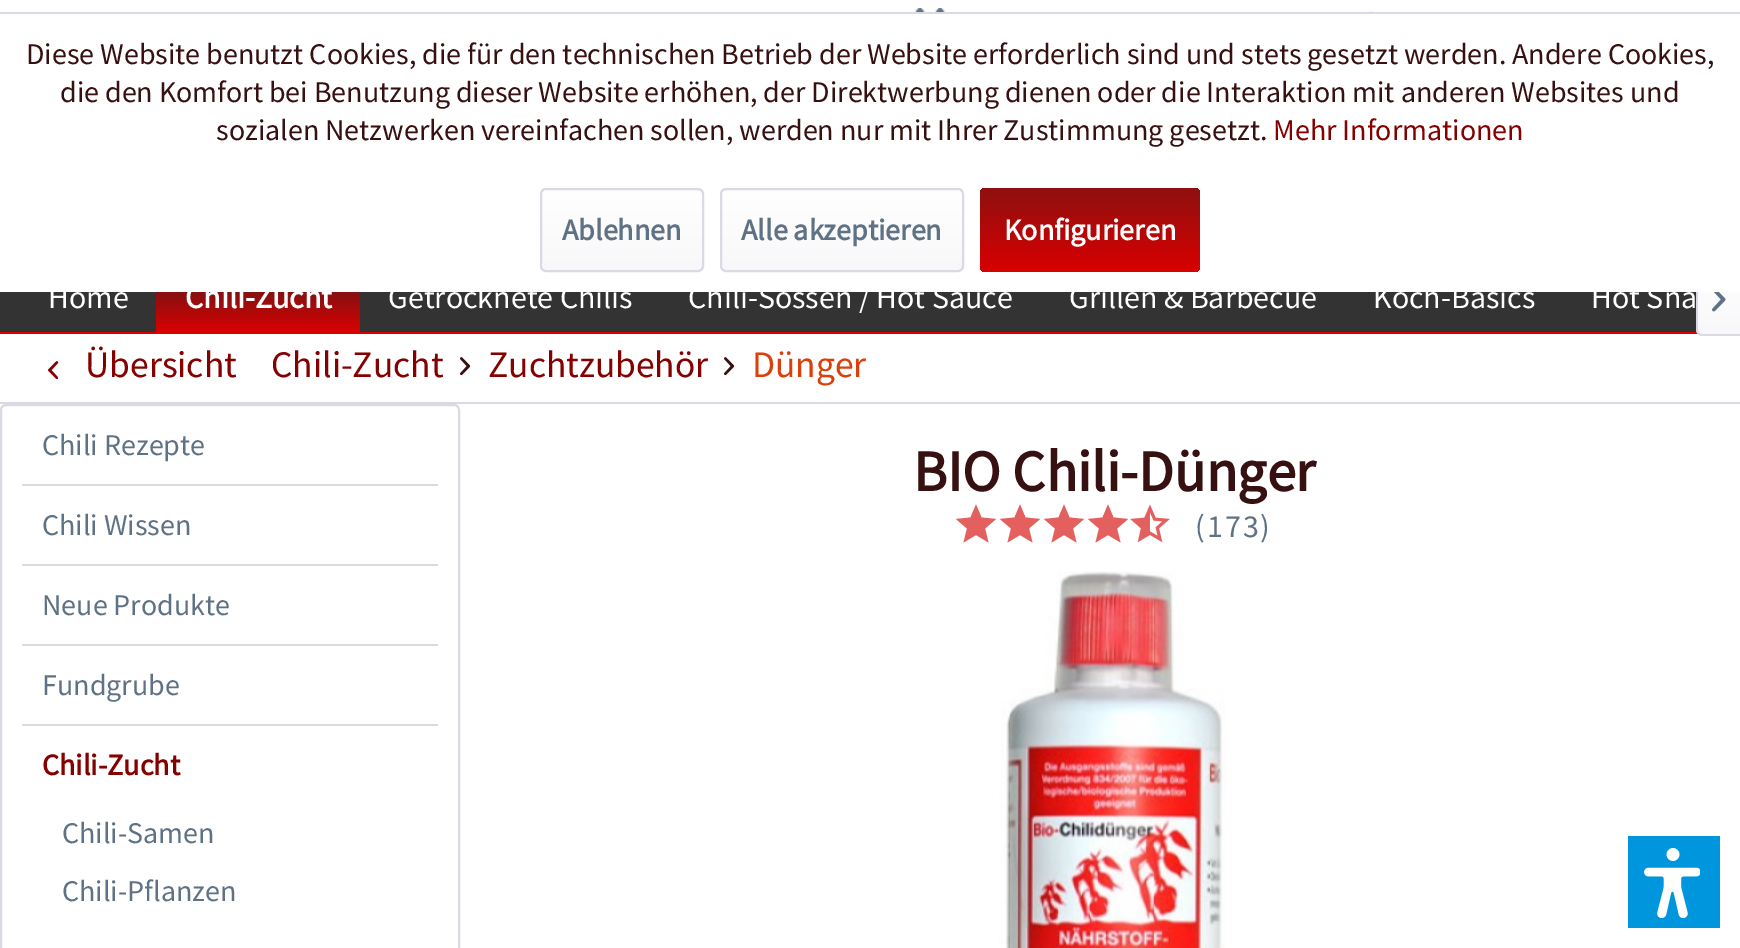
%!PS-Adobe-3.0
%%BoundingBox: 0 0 1740 948
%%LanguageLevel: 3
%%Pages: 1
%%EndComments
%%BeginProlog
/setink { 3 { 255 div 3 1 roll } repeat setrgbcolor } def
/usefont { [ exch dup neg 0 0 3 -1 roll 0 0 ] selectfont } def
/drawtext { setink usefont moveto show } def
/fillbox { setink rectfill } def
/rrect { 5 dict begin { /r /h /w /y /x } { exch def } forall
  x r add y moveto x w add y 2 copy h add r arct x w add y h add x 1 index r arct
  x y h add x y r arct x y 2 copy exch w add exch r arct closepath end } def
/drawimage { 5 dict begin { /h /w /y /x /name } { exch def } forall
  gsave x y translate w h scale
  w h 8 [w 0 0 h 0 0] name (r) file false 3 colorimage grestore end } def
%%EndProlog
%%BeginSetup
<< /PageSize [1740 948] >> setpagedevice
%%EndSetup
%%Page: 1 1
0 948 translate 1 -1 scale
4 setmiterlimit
0 0 1740 948 255 255 255 fillbox
0 292 1699 40 51 51 51 fillbox
0 332 1702 2 217 0 0 fillbox
gsave 1702 264 moveto 1740 264 lineto 1740 334 lineto 1702 334 lineto 1700 334 1698 332 1698 330 curveto 1698 268 lineto 1698 266 1700 264 1702 264 curveto closepath clip newpath
<< /ShadingType 2 /ColorSpace /DeviceRGB /Coords [1719 264 1719 334] /Extend [true true] /Function << /FunctionType 2 /Domain [0 1] /C0 [1 1 1] /C1 [0.973 0.973 0.98] /N 1 >> >> shfill grestore
218 218 229 setink
1702 262 moveto 1740 262 lineto 1740 336 lineto 1702 336 lineto 1699 336 1696 333 1696 330 curveto 1696 268 lineto 1696 265 1699 262 1702 262 curveto closepath 1702 264 moveto 1740 264 lineto 1740 334 lineto 1702 334 lineto 1700 334 1698 332 1698 330 curveto 1698 268 lineto 1698 266 1700 264 1702 264 curveto closepath eofill
1696 262 44 30 255 255 255 fillbox
0 12 1740 2 218 218 229 fillbox
(Diese Website benutzt Cookies, die für den technischen Betrieb der Website erforderlich sind und stets gesetzt werden. Andere Cookies,) 26 64 /SourceSansPro-Regular 30 55 16 17 drawtext
(die den Komfort bei Benutzung dieser Website erhöhen, der Direktwerbung dienen oder die Interaktion mit anderen Websites und) 60 102 /SourceSansPro-Regular 30 55 16 17 drawtext
(sozialen Netzwerken vereinfachen sollen, werden nur mit Ihrer Zustimmung gesetzt.) 216 140 /SourceSansPro-Regular 30 55 16 17 drawtext
(Mehr Informationen) 1273 140 /SourceSansPro-Regular 30 133 0 0 drawtext
gsave 542 190 160 80 4 rrect clip newpath
<< /ShadingType 2 /ColorSpace /DeviceRGB /Coords [622 190 622 270] /Extend [true true] /Function << /FunctionType 2 /Domain [0 1] /C0 [1 1 1] /C1 [0.973 0.973 0.98] /N 1 >> >> shfill grestore
218 218 229 setink
2 setlinewidth
541 189 162 82 5 rrect stroke
(Ablehnen) 562 240 /SourceSansPro-Bold 30 95 114 133 drawtext
gsave 722 190 240 80 4 rrect clip newpath
<< /ShadingType 2 /ColorSpace /DeviceRGB /Coords [842 190 842 270] /Extend [true true] /Function << /FunctionType 2 /Domain [0 1] /C0 [1 1 1] /C1 [0.973 0.973 0.98] /N 1 >> >> shfill grestore
218 218 229 setink
721 189 242 82 5 rrect stroke
(Alle akzeptieren) 741 240 /SourceSansPro-Bold 30 95 114 133 drawtext
gsave 980 188 220 84 6 rrect clip newpath
<< /ShadingType 2 /ColorSpace /DeviceRGB /Coords [1090 104 1090 272] /Extend [true true] /Function << /FunctionType 2 /Domain [0 1] /C0 [0.267 0.122 0.125] /C1 [0.851 0 0] /N 1 >> >> shfill grestore
(Konfigurieren) 1004 240 /SourceSansPro-Bold 30 255 255 255 drawtext
(assets/img1.rgb) 915 8 30 4 drawimage
(assets/img2.rgb) 1369 11 4 1 drawimage
(Home) 48 308 /SourceSansPro-Regular 32 255 255 255 drawtext
gsave 156 292 moveto 360 292 lineto 360 332 lineto 156 332 lineto closepath clip newpath
<< /ShadingType 2 /ColorSpace /DeviceRGB /Coords [258 260 258 332] /Extend [true true] /Function << /FunctionType 2 /Domain [0 1] /C0 [0.267 0.122 0.125] /C1 [0.851 0 0] /N 1 >> >> shfill grestore
(Chili-Zucht) 185 308 /SourceSansPro-Bold 32 255 255 255 drawtext
(Getrocknete Chilis) 388 308 /SourceSansPro-Regular 32 255 255 255 drawtext
(Chili-Sossen / Hot Sauce) 688 308 /SourceSansPro-Regular 32 255 255 255 drawtext
(Grillen & Barbecue) 1069 308 /SourceSansPro-Regular 32 255 255 255 drawtext
(Koch-Basics) 1373 308 /SourceSansPro-Regular 32 255 255 255 drawtext
(Hot Sna) 1591 308 /SourceSansPro-Regular 32 255 255 255 drawtext
(assets/img3.rgb) 1712 292 14 20 drawimage
0 402 1740 2 218 218 229 fillbox
(assets/img4.rgb) 48 361 11 19 drawimage
(Übersicht) 85 377 /SourceSansPro-Regular 37.5 133 0 0 drawtext
(Chili-Zucht) 271 377 /SourceSansPro-Regular 37.5 133 0 0 drawtext
(assets/img5.rgb) 460 357 11 19 drawimage
(Zuchtzubehör) 488 377 /SourceSansPro-Regular 37.5 133 0 0 drawtext
(assets/img5.rgb) 724 357 11 19 drawimage
(Dünger) 752 377 /SourceSansPro-Regular 37.5 217 64 11 drawtext
218 218 229 setink
1 405 458 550 5 rrect stroke
22 484 416 2 218 218 229 fillbox
(Chili Rezepte) 42 455 /SourceSansPro-Regular 30 95 114 133 drawtext
22 564 416 2 218 218 229 fillbox
(Chili Wissen) 42 535 /SourceSansPro-Regular 30 95 114 133 drawtext
22 644 416 2 218 218 229 fillbox
(Neue Produkte) 42 615 /SourceSansPro-Regular 30 95 114 133 drawtext
22 724 416 2 218 218 229 fillbox
(Fundgrube) 42 695 /SourceSansPro-Regular 30 95 114 133 drawtext
(Chili-Zucht) 42 775 /SourceSansPro-Bold 30 133 0 0 drawtext
(Chili-Samen) 62 843 /SourceSansPro-Regular 30 95 114 133 drawtext
(Chili-Pflanzen) 62 901 /SourceSansPro-Regular 30 95 114 133 drawtext
(BIO Chili-Dünger) 913 491 /SourceSansPro-Bold 58 55 16 17 drawtext
228 96 94 setink
976 504.5 moveto 970.5 517.5 lineto 956 519 lineto 967 528.5 lineto 963.5 542.5 lineto 976 535 lineto 988.5 542.5 lineto 985 528.5 lineto 996 519 lineto 981.5 517.5 lineto closepath fill
1020 504.5 moveto 1014.5 517.5 lineto 1000 519 lineto 1011 528.5 lineto 1007.5 542.5 lineto 1020 535 lineto 1032.5 542.5 lineto 1029 528.5 lineto 1040 519 lineto 1025.5 517.5 lineto closepath fill
1064 504.5 moveto 1058.5 517.5 lineto 1044 519 lineto 1055 528.5 lineto 1051.5 542.5 lineto 1064 535 lineto 1076.5 542.5 lineto 1073 528.5 lineto 1084 519 lineto 1069.5 517.5 lineto closepath fill
1108 504.5 moveto 1102.5 517.5 lineto 1088 519 lineto 1099 528.5 lineto 1095.5 542.5 lineto 1108 535 lineto 1120.5 542.5 lineto 1117 528.5 lineto 1128 519 lineto 1113.5 517.5 lineto closepath fill
(assets/img6.rgb) 1130 504 40 39 drawimage
/SourceSansPro-Regular 32 usefont
95 114 133 setink
1195 537 moveto 2 0 (\(173\)) ashow
(assets/img7.rgb) 999 571 227 377 drawimage
1628 836 92 92 0 150 222 fillbox
(assets/img8.rgb) 1644 848 56 70 drawimage
showpage
%%EOF
